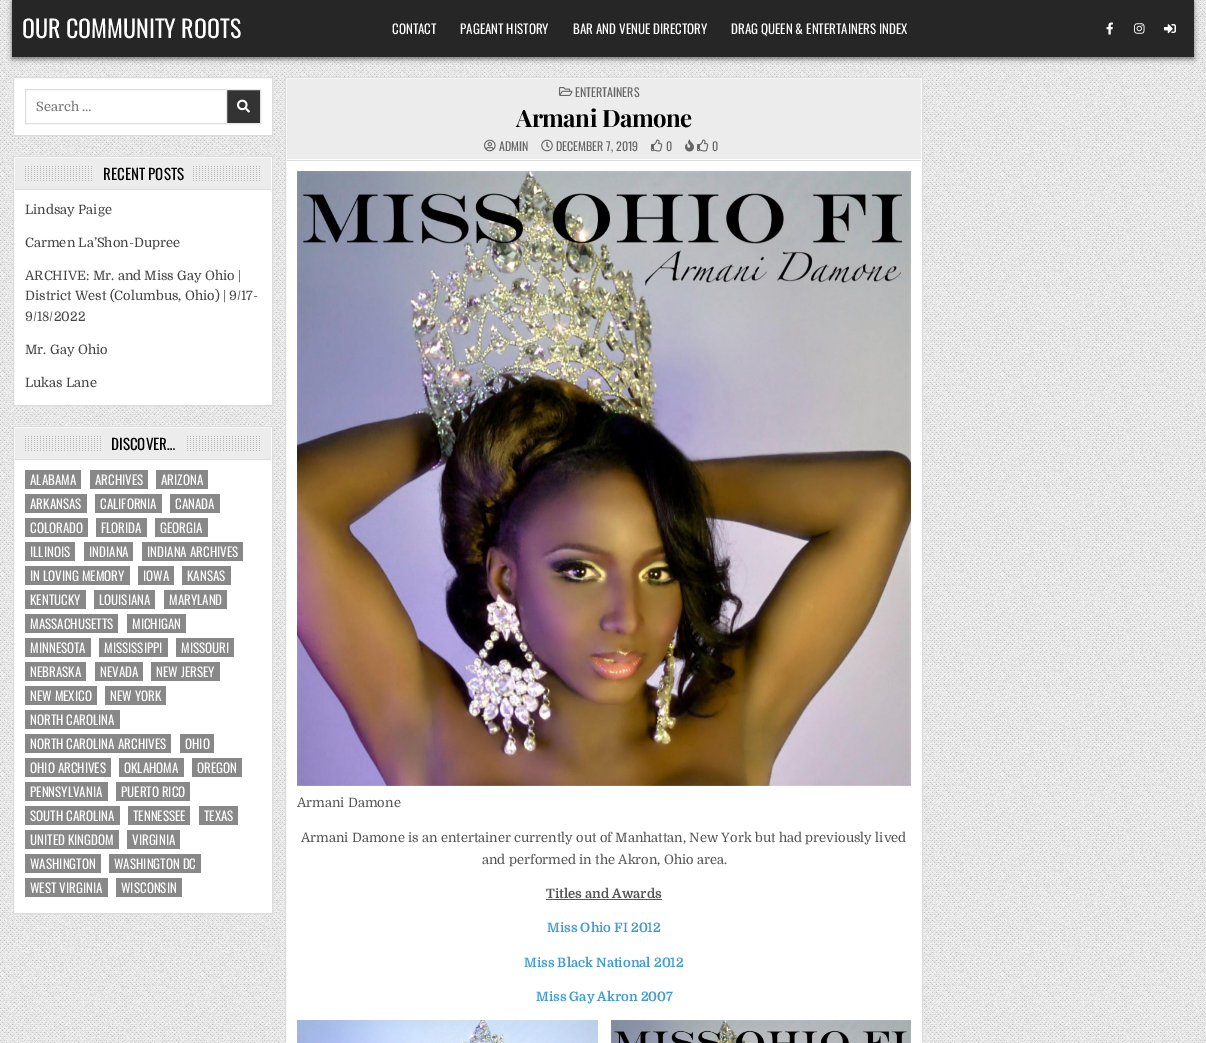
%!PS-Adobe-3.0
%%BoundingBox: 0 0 1206 1043
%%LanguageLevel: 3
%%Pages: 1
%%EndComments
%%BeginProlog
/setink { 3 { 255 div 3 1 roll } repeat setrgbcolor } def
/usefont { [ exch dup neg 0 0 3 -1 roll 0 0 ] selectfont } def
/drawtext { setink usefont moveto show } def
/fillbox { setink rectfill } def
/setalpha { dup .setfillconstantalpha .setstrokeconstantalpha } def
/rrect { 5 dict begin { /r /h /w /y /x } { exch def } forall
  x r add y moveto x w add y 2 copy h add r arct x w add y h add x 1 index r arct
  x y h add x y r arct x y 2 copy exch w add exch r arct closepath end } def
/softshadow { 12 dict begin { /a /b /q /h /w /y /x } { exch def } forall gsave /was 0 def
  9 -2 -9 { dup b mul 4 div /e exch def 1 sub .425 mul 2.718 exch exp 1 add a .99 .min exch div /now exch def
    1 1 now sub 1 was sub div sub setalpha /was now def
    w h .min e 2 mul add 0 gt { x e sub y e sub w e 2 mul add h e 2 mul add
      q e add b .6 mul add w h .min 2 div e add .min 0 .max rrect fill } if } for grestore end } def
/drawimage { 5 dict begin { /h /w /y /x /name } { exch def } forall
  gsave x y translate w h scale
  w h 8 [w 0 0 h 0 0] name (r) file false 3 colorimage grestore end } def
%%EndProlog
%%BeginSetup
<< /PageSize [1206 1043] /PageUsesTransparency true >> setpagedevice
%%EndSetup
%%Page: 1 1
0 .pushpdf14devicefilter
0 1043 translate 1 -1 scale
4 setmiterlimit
0 0 1206 1043 255 255 255 fillbox
(assets/img1.rgb) 0 0 1206 1043 drawimage
0 0 0 setink
12 2 1182 57 0 2.5 0.5 softshadow
12 0 1182 57 38 38 38 fillbox
(OUR COMMUNITY ROOTS) 22 38 /Oswald-Regular 24 255 255 255 drawtext
(CONTACT) 392 34 /Oswald-Regular 13 255 255 255 drawtext
(PAGEANT HISTORY) 460 34 /Oswald-Regular 13 255 255 255 drawtext
(BAR AND VENUE DIRECTORY) 573 34 /Oswald-Regular 13 255 255 255 drawtext
(DRAG QUEEN & ENTERTAINERS INDEX) 731 34 /Oswald-Regular 13 255 255 255 drawtext
(assets/img2.rgb) 1106 22 7 13 drawimage
(assets/img3.rgb) 1134 23 11 11 drawimage
(assets/img4.rgb) 1164 24 12 10 drawimage
13.5 77.5 moveto 272.5 77.5 lineto 272.5 135.5 lineto 13.5 135.5 lineto closepath gsave fill grestore
221 221 221 setink
stroke
25.5 89.5 235 34 rectstroke
(Search …) 36 111 /Domine-Regular 13 117 117 117 drawtext
51 51 51 setink
226.5 89.5 moveto 260.5 89.5 lineto 260.5 123.5 lineto 226.5 123.5 lineto closepath gsave fill grestore
230 230 230 setink
stroke
(assets/img5.rgb) 237 99 13 14 drawimage
255 255 255 setink
13.5 156.5 moveto 272.5 156.5 lineto 272.5 405.5 lineto 13.5 405.5 lineto closepath gsave fill grestore
221 221 221 setink
stroke
15 158 256 31 236 236 236 fillbox
15 189 256 1 221 221 221 fillbox
(assets/img6.rgb) 25 166 235 15 drawimage
94 166 97 15 236 236 236 fillbox
(RECENT POSTS) 103 180 /Oswald-Regular 15 0 0 0 drawtext
(Lindsay Paige) 25 214 /Domine-Regular 13 68 68 68 drawtext
(Carmen La’Shon-Dupree) 25 247 /Domine-Regular 13 68 68 68 drawtext
(ARCHIVE: Mr. and Miss Gay Ohio |) 25 280 /Domine-Regular 13 68 68 68 drawtext
(District West \(Columbus, Ohio\) | 9/17-) 25 300 /Domine-Regular 13 68 68 68 drawtext
(9/18/2022) 25 321 /Domine-Regular 13 68 68 68 drawtext
(Mr. Gay Ohio) 25 354 /Domine-Regular 13 68 68 68 drawtext
(Lukas Lane) 25 387 /Domine-Regular 13 68 68 68 drawtext
255 255 255 setink
13.5 426.5 moveto 272.5 426.5 lineto 272.5 913.5 lineto 13.5 913.5 lineto closepath gsave fill grestore
221 221 221 setink
stroke
15 428 256 31 236 236 236 fillbox
15 459 256 1 221 221 221 fillbox
(assets/img6.rgb) 25 436 235 15 drawimage
103 436 82 15 236 236 236 fillbox
(DISCOVER…) 111 450 /Oswald-Regular 15 0 0 0 drawtext
25 470 56 19 136 136 136 fillbox
(ALABAMA) 30 485 /Oswald-Regular 13 255 255 255 drawtext
90 470 58 19 136 136 136 fillbox
(ARCHIVES) 95 485 /Oswald-Regular 13 255 255 255 drawtext
156 470 52 19 136 136 136 fillbox
(ARIZONA) 161 485 /Oswald-Regular 13 255 255 255 drawtext
25 494 62 19 136 136 136 fillbox
(ARKANSAS) 30 509 /Oswald-Regular 13 255 255 255 drawtext
95 494 67 19 136 136 136 fillbox
(CALIFORNIA) 100 509 /Oswald-Regular 13 255 255 255 drawtext
170 494 50 19 136 136 136 fillbox
(CANADA) 175 509 /Oswald-Regular 13 255 255 255 drawtext
25 518 63 19 136 136 136 fillbox
(COLORADO) 30 533 /Oswald-Regular 13 255 255 255 drawtext
96 518 51 19 136 136 136 fillbox
(FLORIDA) 101 533 /Oswald-Regular 13 255 255 255 drawtext
155 518 53 19 136 136 136 fillbox
(GEORGIA) 160 533 /Oswald-Regular 13 255 255 255 drawtext
25 542 50 19 136 136 136 fillbox
(ILLINOIS) 30 557 /Oswald-Regular 13 255 255 255 drawtext
84 542 49 19 136 136 136 fillbox
(INDIANA) 89 557 /Oswald-Regular 13 255 255 255 drawtext
142 542 101 19 136 136 136 fillbox
(INDIANA ARCHIVES) 147 557 /Oswald-Regular 13 255 255 255 drawtext
25 566 105 19 136 136 136 fillbox
(IN LOVING MEMORY) 30 581 /Oswald-Regular 13 255 255 255 drawtext
138 566 36 19 136 136 136 fillbox
(IOWA) 143 581 /Oswald-Regular 13 255 255 255 drawtext
182 566 49 19 136 136 136 fillbox
(KANSAS) 187 581 /Oswald-Regular 13 255 255 255 drawtext
25 590 61 19 136 136 136 fillbox
(KENTUCKY) 30 605 /Oswald-Regular 13 255 255 255 drawtext
94 590 61 19 136 136 136 fillbox
(LOUISIANA) 99 605 /Oswald-Regular 13 255 255 255 drawtext
164 590 63 19 136 136 136 fillbox
(MARYLAND) 169 605 /Oswald-Regular 13 255 255 255 drawtext
25 614 93 19 136 136 136 fillbox
(MASSACHUSETTS) 30 629 /Oswald-Regular 13 255 255 255 drawtext
127 614 59 19 136 136 136 fillbox
(MICHIGAN) 132 629 /Oswald-Regular 13 255 255 255 drawtext
25 638 66 19 136 136 136 fillbox
(MINNESOTA) 30 653 /Oswald-Regular 13 255 255 255 drawtext
99 638 69 19 136 136 136 fillbox
(MISSISSIPPI) 104 653 /Oswald-Regular 13 255 255 255 drawtext
176 638 58 19 136 136 136 fillbox
(MISSOURI) 181 653 /Oswald-Regular 13 255 255 255 drawtext
25 662 61 19 136 136 136 fillbox
(NEBRASKA) 30 677 /Oswald-Regular 13 255 255 255 drawtext
95 662 48 19 136 136 136 fillbox
(NEVADA) 100 677 /Oswald-Regular 13 255 255 255 drawtext
151 662 69 19 136 136 136 fillbox
(NEW JERSEY) 156 677 /Oswald-Regular 13 255 255 255 drawtext
25 686 72 19 136 136 136 fillbox
(NEW MEXICO) 30 701 /Oswald-Regular 13 255 255 255 drawtext
105 686 61 19 136 136 136 fillbox
(NEW YORK) 110 701 /Oswald-Regular 13 255 255 255 drawtext
25 710 95 19 136 136 136 fillbox
(NORTH CAROLINA) 30 725 /Oswald-Regular 13 255 255 255 drawtext
25 734 146 19 136 136 136 fillbox
(NORTH CAROLINA ARCHIVES) 30 749 /Oswald-Regular 13 255 255 255 drawtext
180 734 34 19 136 136 136 fillbox
(OHIO) 185 749 /Oswald-Regular 13 255 255 255 drawtext
25 758 86 19 136 136 136 fillbox
(OHIO ARCHIVES) 30 773 /Oswald-Regular 13 255 255 255 drawtext
119 758 65 19 136 136 136 fillbox
(OKLAHOMA) 124 773 /Oswald-Regular 13 255 255 255 drawtext
192 758 50 19 136 136 136 fillbox
(OREGON) 197 773 /Oswald-Regular 13 255 255 255 drawtext
25 782 83 19 136 136 136 fillbox
(PENNSYLVANIA) 30 797 /Oswald-Regular 13 255 255 255 drawtext
116 782 74 19 136 136 136 fillbox
(PUERTO RICO) 121 797 /Oswald-Regular 13 255 255 255 drawtext
25 806 95 19 136 136 136 fillbox
(SOUTH CAROLINA) 30 821 /Oswald-Regular 13 255 255 255 drawtext
128 806 62 19 136 136 136 fillbox
(TENNESSEE) 133 821 /Oswald-Regular 13 255 255 255 drawtext
199 806 39 19 136 136 136 fillbox
(TEXAS) 204 821 /Oswald-Regular 13 255 255 255 drawtext
25 830 94 19 136 136 136 fillbox
(UNITED KINGDOM) 30 845 /Oswald-Regular 13 255 255 255 drawtext
127 830 53 19 136 136 136 fillbox
(VIRGINIA) 132 845 /Oswald-Regular 13 255 255 255 drawtext
25 854 76 19 136 136 136 fillbox
(WASHINGTON) 30 869 /Oswald-Regular 13 255 255 255 drawtext
109 854 92 19 136 136 136 fillbox
(WASHINGTON DC) 114 869 /Oswald-Regular 13 255 255 255 drawtext
25 878 83 19 136 136 136 fillbox
(WEST VIRGINIA) 30 893 /Oswald-Regular 13 255 255 255 drawtext
116 878 66 19 136 136 136 fillbox
(WISCONSIN) 121 893 /Oswald-Regular 13 255 255 255 drawtext
285.5 77.5 moveto 922.5 77.5 lineto 922.5 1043.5 lineto 285.5 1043.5 lineto closepath gsave fill grestore
221 221 221 setink
stroke
287 79 634 80 236 236 236 fillbox
287 160 634 1 221 221 221 fillbox
(assets/img7.rgb) 559 87 14 9 drawimage
(ENTERTAINERS) 575 97 /Oswald-Regular 12 102 102 102 drawtext
/PlayfairDisplay-Bold 24 usefont
0 0 0 setink
516 127 moveto -0.5 0 (Armani Damone) ashow
(assets/img8.rgb) 484 139 12 13 drawimage
(ADMIN) 499 151 /Oswald-Regular 12 102 102 102 drawtext
(assets/img9.rgb) 541 139 12 13 drawimage
(DECEMBER 7, 2019) 556 151 /Oswald-Regular 12 102 102 102 drawtext
(assets/img10.rgb) 651 139 12 13 drawimage
(0) 666 151 /Oswald-Regular 12 102 102 102 drawtext
(assets/img11.rgb) 685 139 9 13 drawimage
(assets/img10.rgb) 697 139 12 13 drawimage
(0) 712 151 /Oswald-Regular 12 102 102 102 drawtext
(assets/img12.rgb) 297 171 614 615 drawimage
(Armani Damone) 297 807 /Domine-Regular 13 85 85 85 drawtext
(Armani Damone is an entertainer currently out of Manhattan, New York but had previously lived) 301 842 /Domine-Regular 13 85 85 85 drawtext
(and performed in the Akron, Ohio area.) 482 864 /Domine-Regular 13 85 85 85 drawtext
(Titles and Awards) 546 898 /Domine-Bold 13 85 85 85 drawtext
546 899 116 1 85 85 85 fillbox
(Miss Ohio FI 2012) 547 932 /Domine-Bold 13 64 155 212 drawtext
(Miss Black National 2012) 524 967 /Domine-Bold 13 64 155 212 drawtext
(Miss Gay Akron 2007) 536 1001 /Domine-Bold 13 64 155 212 drawtext
(assets/img13.rgb) 297 1020 301 23 drawimage
(assets/img14.rgb) 611 1020 300 23 drawimage
.poppdf14devicefilter showpage
%%EOF
